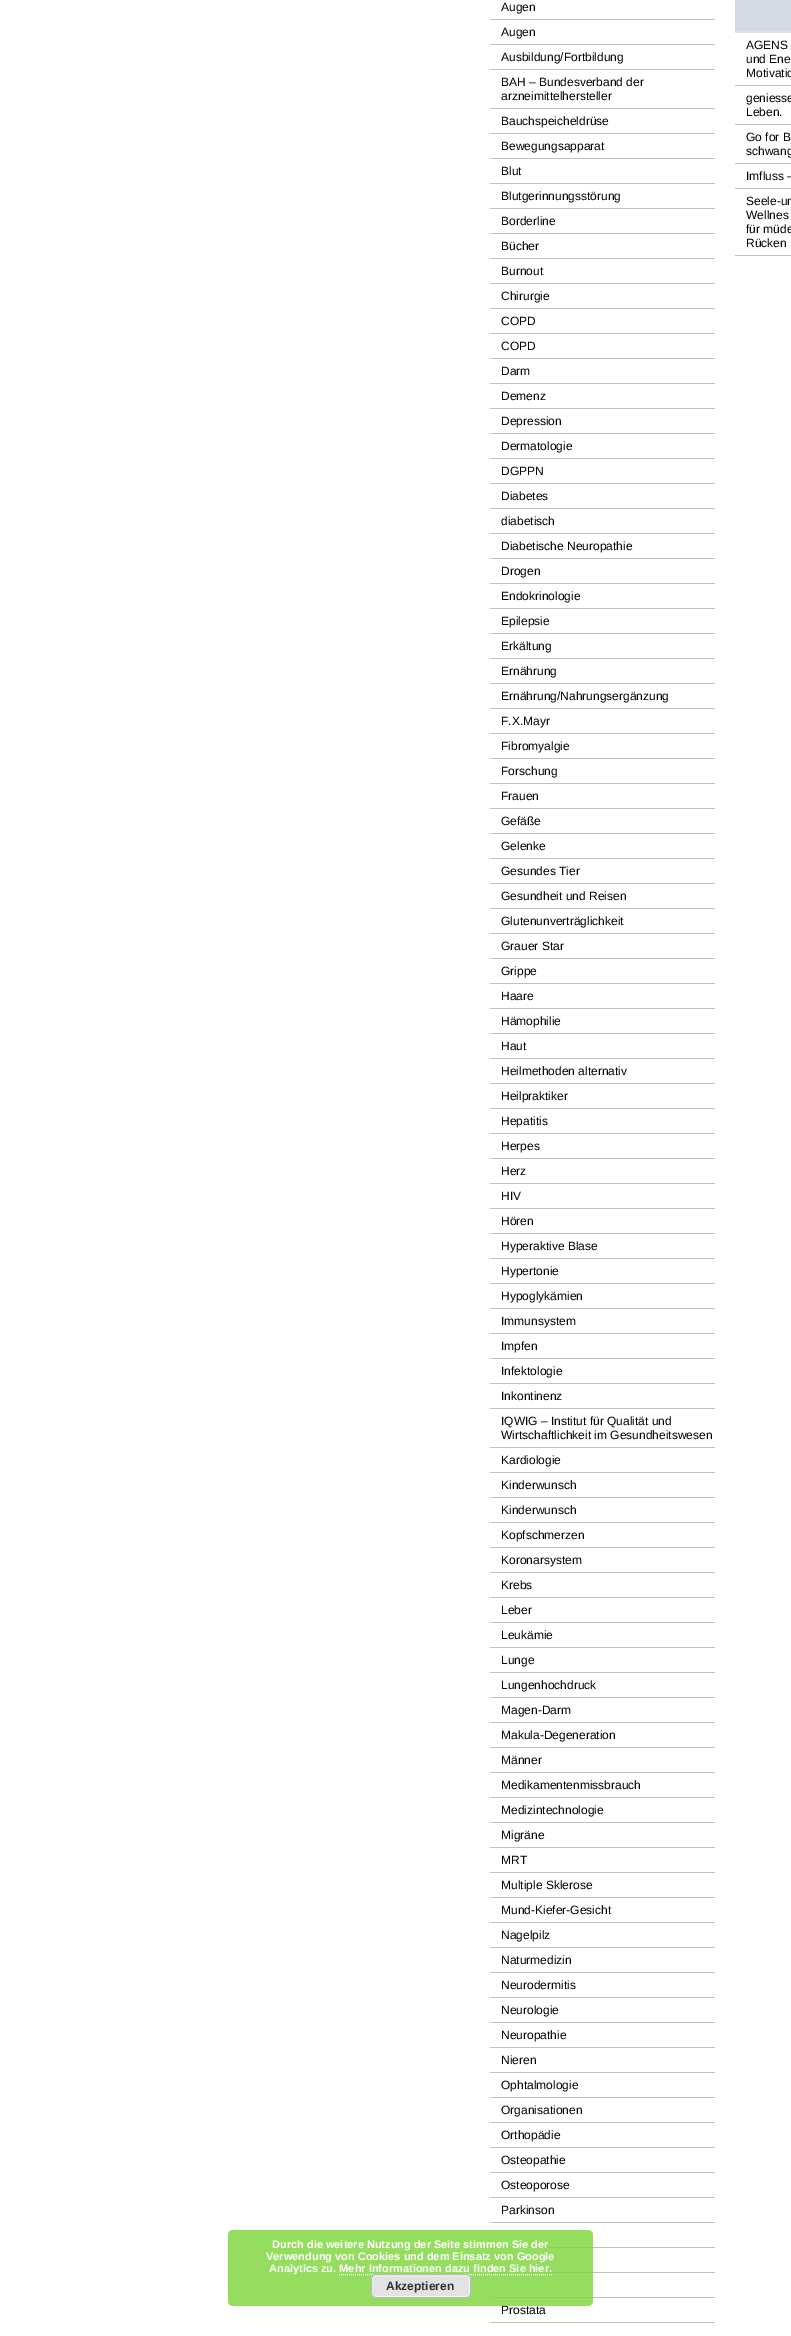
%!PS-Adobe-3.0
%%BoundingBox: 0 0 791 2336
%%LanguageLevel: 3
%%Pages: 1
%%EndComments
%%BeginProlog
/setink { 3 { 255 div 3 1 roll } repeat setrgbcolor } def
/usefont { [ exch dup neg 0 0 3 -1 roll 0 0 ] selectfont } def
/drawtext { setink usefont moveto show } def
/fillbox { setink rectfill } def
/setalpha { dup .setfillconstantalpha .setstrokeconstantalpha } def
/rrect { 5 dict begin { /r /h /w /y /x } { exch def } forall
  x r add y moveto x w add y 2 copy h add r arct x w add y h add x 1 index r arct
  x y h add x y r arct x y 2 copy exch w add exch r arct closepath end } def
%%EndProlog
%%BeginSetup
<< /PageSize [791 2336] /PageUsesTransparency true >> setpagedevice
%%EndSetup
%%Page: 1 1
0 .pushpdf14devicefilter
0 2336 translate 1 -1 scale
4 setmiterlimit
0 0 791 2336 255 255 255 fillbox
490 2247 225 1 192 192 192 fillbox
490 2272 225 1 192 192 192 fillbox
490 2297 225 1 192 192 192 fillbox
(Prostata) 501 2314 /LiberationSans-Regular 12 0 0 0 drawtext
0.85 setalpha
129 215 66 setink
228 2230 365 76 5 rrect fill
1 setalpha
(Durch die weitere Nutzung der Seite stimmen Sie der) 272 2248 /LiberationSans-Bold 11 255 255 255 drawtext
(Verwendung von Cookies und dem Einsatz von Google) 266 2260 /LiberationSans-Bold 11 255 255 255 drawtext
(Analytics zu. Mehr Informationen dazu finden Sie hier.) 269 2272 /LiberationSans-Bold 11 255 255 255 drawtext
[1 1] 0 setdash
339 2274.5 moveto 552 2274.5 lineto stroke
227 227 227 setink
371 2274 100 24 5 rrect fill
246 246 246 setink
[] 0 setdash
372.5 2275.5 97 21 3.5 rrect stroke
187 187 187 setink
371.5 2274.5 99 23 4.5 rrect stroke
(Akzeptieren) 386 2290 /LiberationSans-Bold 12 51 51 51 drawtext
490 19 225 1 192 192 192 fillbox
(Augen) 501 11 /LiberationSans-Regular 12 0 0 0 drawtext
490 44 225 1 192 192 192 fillbox
(Augen) 501 36 /LiberationSans-Regular 12 0 0 0 drawtext
490 69 225 1 192 192 192 fillbox
(Ausbildung/Fortbildung) 501 61 /LiberationSans-Regular 12 0 0 0 drawtext
490 108 225 1 192 192 192 fillbox
(BAH – Bundesverband der) 501 86 /LiberationSans-Regular 12 0 0 0 drawtext
(arzneimittelhersteller) 501 100 /LiberationSans-Regular 12 0 0 0 drawtext
490 133 225 1 192 192 192 fillbox
(Bauchspeicheldrüse) 501 125 /LiberationSans-Regular 12 0 0 0 drawtext
490 158 225 1 192 192 192 fillbox
(Bewegungsapparat) 501 150 /LiberationSans-Regular 12 0 0 0 drawtext
490 183 225 1 192 192 192 fillbox
(Blut) 501 175 /LiberationSans-Regular 12 0 0 0 drawtext
490 208 225 1 192 192 192 fillbox
(Blutgerinnungsstörung) 501 200 /LiberationSans-Regular 12 0 0 0 drawtext
490 233 225 1 192 192 192 fillbox
(Borderline) 501 225 /LiberationSans-Regular 12 0 0 0 drawtext
490 258 225 1 192 192 192 fillbox
(Bücher) 501 250 /LiberationSans-Regular 12 0 0 0 drawtext
490 283 225 1 192 192 192 fillbox
(Burnout) 501 275 /LiberationSans-Regular 12 0 0 0 drawtext
490 308 225 1 192 192 192 fillbox
(Chirurgie) 501 300 /LiberationSans-Regular 12 0 0 0 drawtext
490 333 225 1 192 192 192 fillbox
(COPD) 501 325 /LiberationSans-Regular 12 0 0 0 drawtext
490 358 225 1 192 192 192 fillbox
(COPD) 501 350 /LiberationSans-Regular 12 0 0 0 drawtext
490 383 225 1 192 192 192 fillbox
(Darm) 501 375 /LiberationSans-Regular 12 0 0 0 drawtext
490 408 225 1 192 192 192 fillbox
(Demenz) 501 400 /LiberationSans-Regular 12 0 0 0 drawtext
490 433 225 1 192 192 192 fillbox
(Depression) 501 425 /LiberationSans-Regular 12 0 0 0 drawtext
490 458 225 1 192 192 192 fillbox
(Dermatologie) 501 450 /LiberationSans-Regular 12 0 0 0 drawtext
490 483 225 1 192 192 192 fillbox
(DGPPN) 501 475 /LiberationSans-Regular 12 0 0 0 drawtext
490 508 225 1 192 192 192 fillbox
(Diabetes) 501 500 /LiberationSans-Regular 12 0 0 0 drawtext
490 533 225 1 192 192 192 fillbox
(diabetisch) 501 525 /LiberationSans-Regular 12 0 0 0 drawtext
490 558 225 1 192 192 192 fillbox
(Diabetische Neuropathie) 501 550 /LiberationSans-Regular 12 0 0 0 drawtext
490 583 225 1 192 192 192 fillbox
(Drogen) 501 575 /LiberationSans-Regular 12 0 0 0 drawtext
490 608 225 1 192 192 192 fillbox
(Endokrinologie) 501 600 /LiberationSans-Regular 12 0 0 0 drawtext
490 633 225 1 192 192 192 fillbox
(Epilepsie) 501 625 /LiberationSans-Regular 12 0 0 0 drawtext
490 658 225 1 192 192 192 fillbox
(Erkältung) 501 650 /LiberationSans-Regular 12 0 0 0 drawtext
490 683 225 1 192 192 192 fillbox
(Ernährung) 501 675 /LiberationSans-Regular 12 0 0 0 drawtext
490 708 225 1 192 192 192 fillbox
(Ernährung/Nahrungsergänzung) 501 700 /LiberationSans-Regular 12 0 0 0 drawtext
490 733 225 1 192 192 192 fillbox
(F.X.Mayr) 501 725 /LiberationSans-Regular 12 0 0 0 drawtext
490 758 225 1 192 192 192 fillbox
(Fibromyalgie) 501 750 /LiberationSans-Regular 12 0 0 0 drawtext
490 783 225 1 192 192 192 fillbox
(Forschung) 501 775 /LiberationSans-Regular 12 0 0 0 drawtext
490 808 225 1 192 192 192 fillbox
(Frauen) 501 800 /LiberationSans-Regular 12 0 0 0 drawtext
490 833 225 1 192 192 192 fillbox
(Gefäße) 501 825 /LiberationSans-Regular 12 0 0 0 drawtext
490 858 225 1 192 192 192 fillbox
(Gelenke) 501 850 /LiberationSans-Regular 12 0 0 0 drawtext
490 883 225 1 192 192 192 fillbox
(Gesundes Tier) 501 875 /LiberationSans-Regular 12 0 0 0 drawtext
490 908 225 1 192 192 192 fillbox
(Gesundheit und Reisen) 501 900 /LiberationSans-Regular 12 0 0 0 drawtext
490 933 225 1 192 192 192 fillbox
(Glutenunverträglichkeit) 501 925 /LiberationSans-Regular 12 0 0 0 drawtext
490 958 225 1 192 192 192 fillbox
(Grauer Star) 501 950 /LiberationSans-Regular 12 0 0 0 drawtext
490 983 225 1 192 192 192 fillbox
(Grippe) 501 975 /LiberationSans-Regular 12 0 0 0 drawtext
490 1008 225 1 192 192 192 fillbox
(Haare) 501 1000 /LiberationSans-Regular 12 0 0 0 drawtext
490 1033 225 1 192 192 192 fillbox
(Hämophilie) 501 1025 /LiberationSans-Regular 12 0 0 0 drawtext
490 1058 225 1 192 192 192 fillbox
(Haut) 501 1050 /LiberationSans-Regular 12 0 0 0 drawtext
490 1083 225 1 192 192 192 fillbox
(Heilmethoden alternativ) 501 1075 /LiberationSans-Regular 12 0 0 0 drawtext
490 1108 225 1 192 192 192 fillbox
(Heilpraktiker) 501 1100 /LiberationSans-Regular 12 0 0 0 drawtext
490 1133 225 1 192 192 192 fillbox
(Hepatitis) 501 1125 /LiberationSans-Regular 12 0 0 0 drawtext
490 1158 225 1 192 192 192 fillbox
(Herpes) 501 1150 /LiberationSans-Regular 12 0 0 0 drawtext
490 1183 225 1 192 192 192 fillbox
(Herz) 501 1175 /LiberationSans-Regular 12 0 0 0 drawtext
490 1208 225 1 192 192 192 fillbox
(HIV) 501 1200 /LiberationSans-Regular 12 0 0 0 drawtext
490 1233 225 1 192 192 192 fillbox
(Hören) 501 1225 /LiberationSans-Regular 12 0 0 0 drawtext
490 1258 225 1 192 192 192 fillbox
(Hyperaktive Blase) 501 1250 /LiberationSans-Regular 12 0 0 0 drawtext
490 1283 225 1 192 192 192 fillbox
(Hypertonie) 501 1275 /LiberationSans-Regular 12 0 0 0 drawtext
490 1308 225 1 192 192 192 fillbox
(Hypoglykämien) 501 1300 /LiberationSans-Regular 12 0 0 0 drawtext
490 1333 225 1 192 192 192 fillbox
(Immunsystem) 501 1325 /LiberationSans-Regular 12 0 0 0 drawtext
490 1358 225 1 192 192 192 fillbox
(Impfen) 501 1350 /LiberationSans-Regular 12 0 0 0 drawtext
490 1383 225 1 192 192 192 fillbox
(Infektologie) 501 1375 /LiberationSans-Regular 12 0 0 0 drawtext
490 1408 225 1 192 192 192 fillbox
(Inkontinenz) 501 1400 /LiberationSans-Regular 12 0 0 0 drawtext
490 1447 225 1 192 192 192 fillbox
(IQWIG – Institut für Qualität und) 501 1425 /LiberationSans-Regular 12 0 0 0 drawtext
(Wirtschaftlichkeit im Gesundheitswesen) 501 1439 /LiberationSans-Regular 12 0 0 0 drawtext
490 1472 225 1 192 192 192 fillbox
(Kardiologie) 501 1464 /LiberationSans-Regular 12 0 0 0 drawtext
490 1497 225 1 192 192 192 fillbox
(Kinderwunsch) 501 1489 /LiberationSans-Regular 12 0 0 0 drawtext
490 1522 225 1 192 192 192 fillbox
(Kinderwunsch) 501 1514 /LiberationSans-Regular 12 0 0 0 drawtext
490 1547 225 1 192 192 192 fillbox
(Kopfschmerzen) 501 1539 /LiberationSans-Regular 12 0 0 0 drawtext
490 1572 225 1 192 192 192 fillbox
(Koronarsystem) 501 1564 /LiberationSans-Regular 12 0 0 0 drawtext
490 1597 225 1 192 192 192 fillbox
(Krebs) 501 1589 /LiberationSans-Regular 12 0 0 0 drawtext
490 1622 225 1 192 192 192 fillbox
(Leber) 501 1614 /LiberationSans-Regular 12 0 0 0 drawtext
490 1647 225 1 192 192 192 fillbox
(Leukämie) 501 1639 /LiberationSans-Regular 12 0 0 0 drawtext
490 1672 225 1 192 192 192 fillbox
(Lunge) 501 1664 /LiberationSans-Regular 12 0 0 0 drawtext
490 1697 225 1 192 192 192 fillbox
(Lungenhochdruck) 501 1689 /LiberationSans-Regular 12 0 0 0 drawtext
490 1722 225 1 192 192 192 fillbox
(Magen-Darm) 501 1714 /LiberationSans-Regular 12 0 0 0 drawtext
490 1747 225 1 192 192 192 fillbox
(Makula-Degeneration) 501 1739 /LiberationSans-Regular 12 0 0 0 drawtext
490 1772 225 1 192 192 192 fillbox
(Männer) 501 1764 /LiberationSans-Regular 12 0 0 0 drawtext
490 1797 225 1 192 192 192 fillbox
(Medikamentenmissbrauch) 501 1789 /LiberationSans-Regular 12 0 0 0 drawtext
490 1822 225 1 192 192 192 fillbox
(Medizintechnologie) 501 1814 /LiberationSans-Regular 12 0 0 0 drawtext
490 1847 225 1 192 192 192 fillbox
(Migräne) 501 1839 /LiberationSans-Regular 12 0 0 0 drawtext
490 1872 225 1 192 192 192 fillbox
(MRT) 501 1864 /LiberationSans-Regular 12 0 0 0 drawtext
490 1897 225 1 192 192 192 fillbox
(Multiple Sklerose) 501 1889 /LiberationSans-Regular 12 0 0 0 drawtext
490 1922 225 1 192 192 192 fillbox
(Mund-Kiefer-Gesicht) 501 1914 /LiberationSans-Regular 12 0 0 0 drawtext
490 1947 225 1 192 192 192 fillbox
(Nagelpilz) 501 1939 /LiberationSans-Regular 12 0 0 0 drawtext
490 1972 225 1 192 192 192 fillbox
(Naturmedizin) 501 1964 /LiberationSans-Regular 12 0 0 0 drawtext
490 1997 225 1 192 192 192 fillbox
(Neurodermitis) 501 1989 /LiberationSans-Regular 12 0 0 0 drawtext
490 2022 225 1 192 192 192 fillbox
(Neurologie) 501 2014 /LiberationSans-Regular 12 0 0 0 drawtext
490 2047 225 1 192 192 192 fillbox
(Neuropathie) 501 2039 /LiberationSans-Regular 12 0 0 0 drawtext
490 2072 225 1 192 192 192 fillbox
(Nieren) 501 2064 /LiberationSans-Regular 12 0 0 0 drawtext
490 2097 225 1 192 192 192 fillbox
(Ophtalmologie) 501 2089 /LiberationSans-Regular 12 0 0 0 drawtext
490 2122 225 1 192 192 192 fillbox
(Organisationen) 501 2114 /LiberationSans-Regular 12 0 0 0 drawtext
490 2147 225 1 192 192 192 fillbox
(Orthopädie) 501 2139 /LiberationSans-Regular 12 0 0 0 drawtext
490 2172 225 1 192 192 192 fillbox
(Osteopathie) 501 2164 /LiberationSans-Regular 12 0 0 0 drawtext
490 2197 225 1 192 192 192 fillbox
(Osteoporose) 501 2189 /LiberationSans-Regular 12 0 0 0 drawtext
490 2222 225 1 192 192 192 fillbox
(Parkinson) 501 2214 /LiberationSans-Regular 12 0 0 0 drawtext
490 2322 225 1 192 192 192 fillbox
735 0 56 31 211 219 230 fillbox
735 31 56 2 218 227 234 fillbox
735 85 56 1 192 192 192 fillbox
(AGENS) 746 49 /LiberationSans-Regular 12 0 0 0 drawtext
(und Ene) 746 63 /LiberationSans-Regular 12 0 0 0 drawtext
(Motivatio) 746 77 /LiberationSans-Regular 12 0 0 0 drawtext
735 124 56 1 192 192 192 fillbox
(geniesse) 746 102 /LiberationSans-Regular 12 0 0 0 drawtext
(Leben.) 746 116 /LiberationSans-Regular 12 0 0 0 drawtext
735 163 56 1 192 192 192 fillbox
(Go for B) 746 141 /LiberationSans-Regular 12 0 0 0 drawtext
(schwang) 746 155 /LiberationSans-Regular 12 0 0 0 drawtext
735 188 56 1 192 192 192 fillbox
(Imfluss –) 746 180 /LiberationSans-Regular 12 0 0 0 drawtext
735 255 56 1 192 192 192 fillbox
(Seele-un) 746 205 /LiberationSans-Regular 12 0 0 0 drawtext
(Wellnes) 746 219 /LiberationSans-Regular 12 0 0 0 drawtext
(für müde) 746 233 /LiberationSans-Regular 12 0 0 0 drawtext
(Rücken) 746 247 /LiberationSans-Regular 12 0 0 0 drawtext
.poppdf14devicefilter showpage
%%EOF
